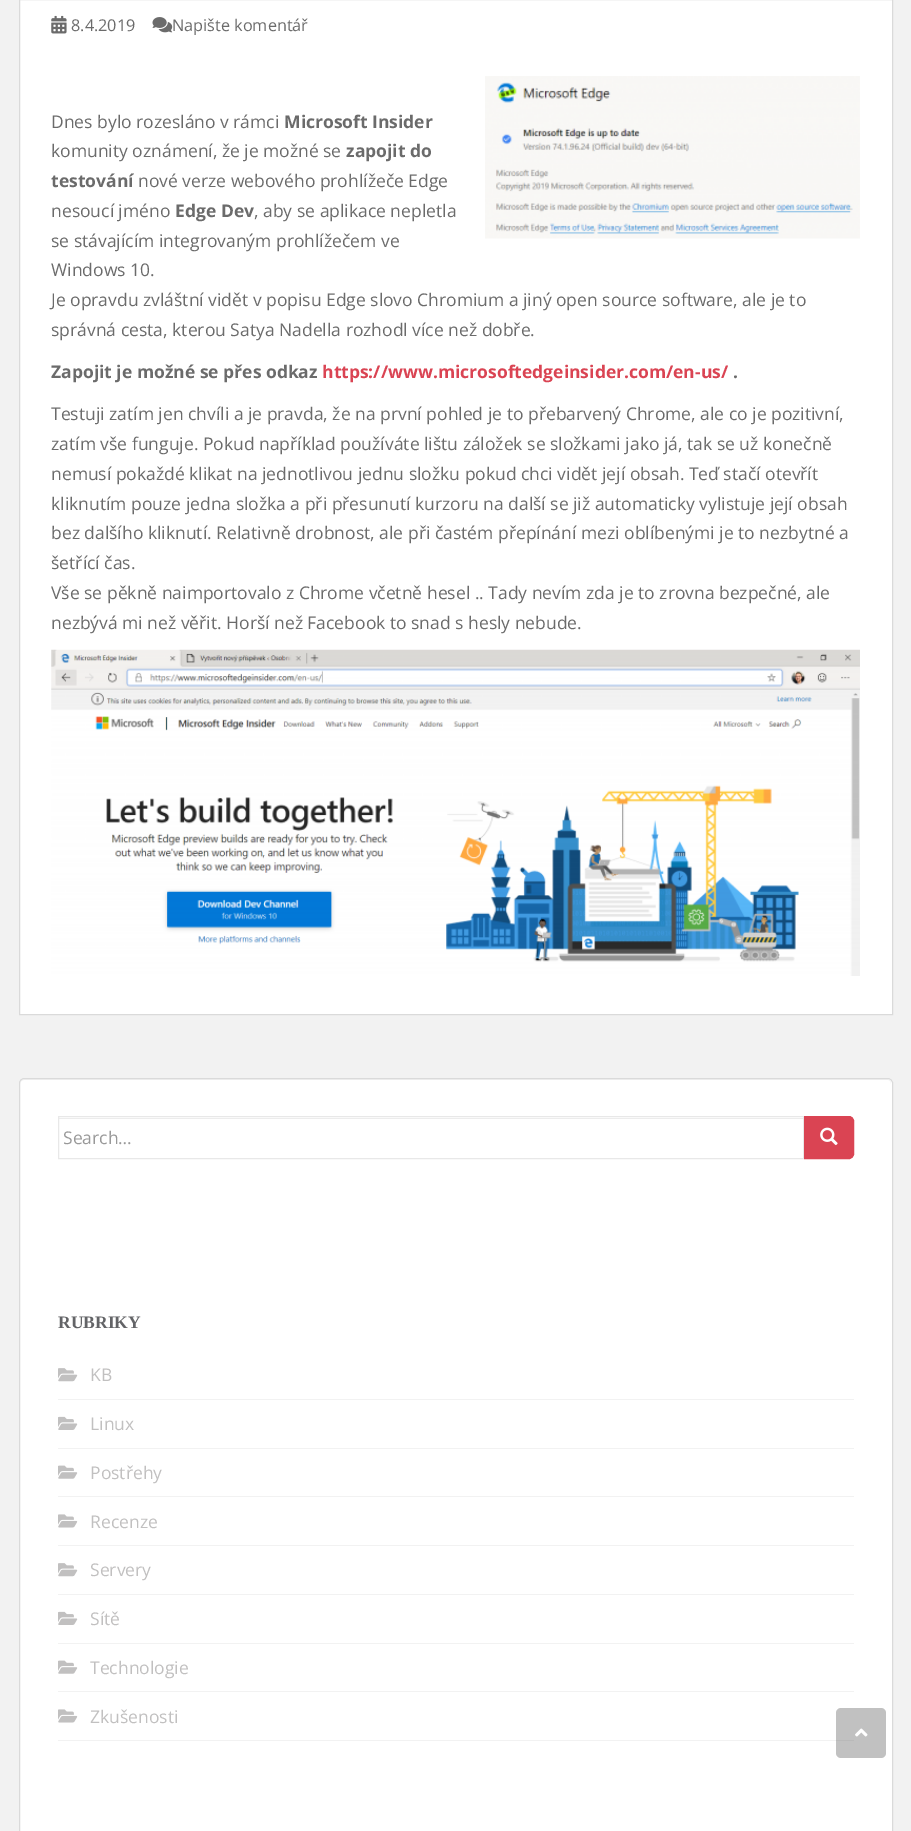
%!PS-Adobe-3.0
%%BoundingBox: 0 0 911 1831
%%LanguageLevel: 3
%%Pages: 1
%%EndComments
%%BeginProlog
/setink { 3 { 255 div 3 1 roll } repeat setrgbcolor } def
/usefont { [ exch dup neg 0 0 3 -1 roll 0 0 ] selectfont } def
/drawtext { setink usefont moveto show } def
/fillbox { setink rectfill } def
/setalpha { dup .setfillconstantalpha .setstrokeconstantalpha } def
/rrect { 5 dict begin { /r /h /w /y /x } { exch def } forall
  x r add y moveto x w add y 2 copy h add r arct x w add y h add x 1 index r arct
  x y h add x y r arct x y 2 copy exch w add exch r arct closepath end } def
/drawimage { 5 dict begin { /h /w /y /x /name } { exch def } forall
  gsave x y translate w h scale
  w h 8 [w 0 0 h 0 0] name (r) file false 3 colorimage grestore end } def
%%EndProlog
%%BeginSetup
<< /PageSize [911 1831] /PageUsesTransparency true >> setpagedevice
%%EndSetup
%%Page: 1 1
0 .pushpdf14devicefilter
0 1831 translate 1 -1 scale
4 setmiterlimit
0 0 911 1831 242 242 242 fillbox
255 255 255 setink
19.5 -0.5 moveto 892.5 -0.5 lineto 892.5 1014.5 lineto 19.5 1014.5 lineto closepath gsave fill grestore
218 218 218 setink
stroke
(assets/img1.rgb) 51 15 16 19 drawimage
(8.4.2019) 71 31 /OpenSans-Regular 16.25 107 107 107 drawtext
(assets/img2.rgb) 152 17 21 16 drawimage
(Napište komentář) 172 31 /OpenSans-Regular 16.25 107 107 107 drawtext
(Dnes bylo rozesláno v rámci) 51 128 /OpenSans-Regular 17.5 107 107 107 drawtext
(Microsoft Insider) 284 128 /OpenSans-Bold 17.5 107 107 107 drawtext
(assets/img3.rgb) 485 76 375 163 drawimage
(komunity oznámení, že je možné se) 51 157 /OpenSans-Regular 17.5 107 107 107 drawtext
(zapojit do) 346 157 /OpenSans-Bold 17.5 107 107 107 drawtext
(testování) 51 187 /OpenSans-Bold 17.5 107 107 107 drawtext
(nové verze webového prohlížeče Edge) 138 187 /OpenSans-Regular 17.5 107 107 107 drawtext
(nesoucí jméno) 51 217 /OpenSans-Regular 17.5 107 107 107 drawtext
(Edge Dev) 175 217 /OpenSans-Bold 17.5 107 107 107 drawtext
(, aby se aplikace nepletla) 254 217 /OpenSans-Regular 17.5 107 107 107 drawtext
(se stávajícím integrovaným prohlížečem ve) 51 247 /OpenSans-Regular 17.5 107 107 107 drawtext
(Windows 10.) 51 276 /OpenSans-Regular 17.5 107 107 107 drawtext
(Je opravdu zvláštní vidět v popisu Edge slovo Chromium a jiný open source software, ale je to) 51 306 /OpenSans-Regular 17.5 107 107 107 drawtext
(správná cesta, kterou Satya Nadella rozhodl více než dobře.) 51 336 /OpenSans-Regular 17.5 107 107 107 drawtext
(Zapojit je možné se přes odkaz) 51 378 /OpenSans-Bold 17.5 107 107 107 drawtext
(https://www.microsoftedgeinsider.com/en-us/) 322 378 /OpenSans-Bold 17.5 218 68 83 drawtext
(.) 733 378 /OpenSans-Bold 17.5 107 107 107 drawtext
(Testuji zatím jen chvíli a je pravda, že na první pohled je to přebarvený Chrome, ale co je pozitivní,) 51 420 /OpenSans-Regular 17.5 107 107 107 drawtext
(zatím vše funguje. Pokud například používáte lištu záložek se složkami jako já, tak se už konečně) 51 450 /OpenSans-Regular 17.5 107 107 107 drawtext
(nemusí pokaždé klikat na jednotlivou jednu složku pokud chci vidět její obsah. Teď stačí otevřít) 51 480 /OpenSans-Regular 17.5 107 107 107 drawtext
(kliknutím pouze jedna složka a při přesunutí kurzoru na další se již automaticky vylistuje její obsah) 51 510 /OpenSans-Regular 17.5 107 107 107 drawtext
(bez dalšího kliknutí. Relativně drobnost, ale při častém přepínání mezi oblíbenými je to nezbytné a) 51 539 /OpenSans-Regular 17.5 107 107 107 drawtext
(šetřící čas.) 51 569 /OpenSans-Regular 17.5 107 107 107 drawtext
(Vše se pěkně naimportovalo z Chrome včetně hesel .. Tady nevím zda je to zrovna bezpečné, ale) 51 599 /OpenSans-Regular 17.5 107 107 107 drawtext
(nezbývá mi než věřit. Horší než Facebook to snad s hesly nebude.) 51 629 /OpenSans-Regular 17.5 107 107 107 drawtext
(assets/img4.rgb) 51 649 809 327 drawimage
255 255 255 setink
19 1078 874 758 5 rrect fill
242 242 242 setink
24 1080 moveto 888 1080 lineto 890 1080 891 1082 891 1084 curveto 891 1081 890 1079 887 1079 curveto 24 1079 lineto 21 1079 20 1081 20 1084 curveto 20 1082 22 1080 24 1080 curveto closepath fill
218 218 218 setink
19.5 1078.5 873 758 4.5 rrect stroke
59 1118 744 1 236 236 236 fillbox
232 232 232 setink
58.5 1116.5 745 42 rectstroke
(Search…) 63 1144 /OpenSans-Regular 17.5 153 153 153 drawtext
218 68 83 setink
804.5 1116.5 moveto 849 1116.5 lineto 851.5 1116.5 853.5 1118.5 853.5 1121 curveto 853.5 1154 lineto 853.5 1156.5 851.5 1158.5 849 1158.5 curveto 804.5 1158.5 lineto closepath gsave fill grestore
stroke
(assets/img5.rgb) 820 1127 18 19 drawimage
(RUBRIKY) 58 1328 /LiberationSerif-Bold 17.5 99 100 103 drawtext
58 1399 796 1 242 242 242 fillbox
(assets/img6.rgb) 58 1368 20 14 drawimage
(KB) 90 1381 /OpenSans-Regular 17.5 193 192 192 drawtext
58 1448 796 1 242 242 242 fillbox
(assets/img7.rgb) 58 1416 20 14 drawimage
(Linux) 90 1430 /OpenSans-Regular 17.5 193 192 192 drawtext
58 1496 796 1 242 242 242 fillbox
(assets/img8.rgb) 58 1465 20 14 drawimage
(Postřehy) 90 1479 /OpenSans-Regular 17.5 193 192 192 drawtext
58 1545 796 1 242 242 242 fillbox
(assets/img9.rgb) 58 1514 20 14 drawimage
(Recenze) 90 1528 /OpenSans-Regular 17.5 193 192 192 drawtext
58 1594 796 1 242 242 242 fillbox
(assets/img6.rgb) 58 1563 20 14 drawimage
(Servery) 90 1576 /OpenSans-Regular 17.5 193 192 192 drawtext
58 1643 796 1 242 242 242 fillbox
(assets/img7.rgb) 58 1611 20 14 drawimage
(Sítě) 90 1625 /OpenSans-Regular 17.5 193 192 192 drawtext
58 1691 796 1 242 242 242 fillbox
(assets/img8.rgb) 58 1660 20 14 drawimage
(Technologie) 90 1674 /OpenSans-Regular 17.5 193 192 192 drawtext
58 1740 796 1 242 242 242 fillbox
(assets/img9.rgb) 58 1709 20 14 drawimage
(Zkušenosti) 90 1723 /OpenSans-Regular 17.5 193 192 192 drawtext
0.4 setalpha
100 100 100 setink
836 1708 50 50 5 rrect fill
1 setalpha
(assets/img10.rgb) 855 1728 13 9 drawimage
.poppdf14devicefilter showpage
%%EOF
